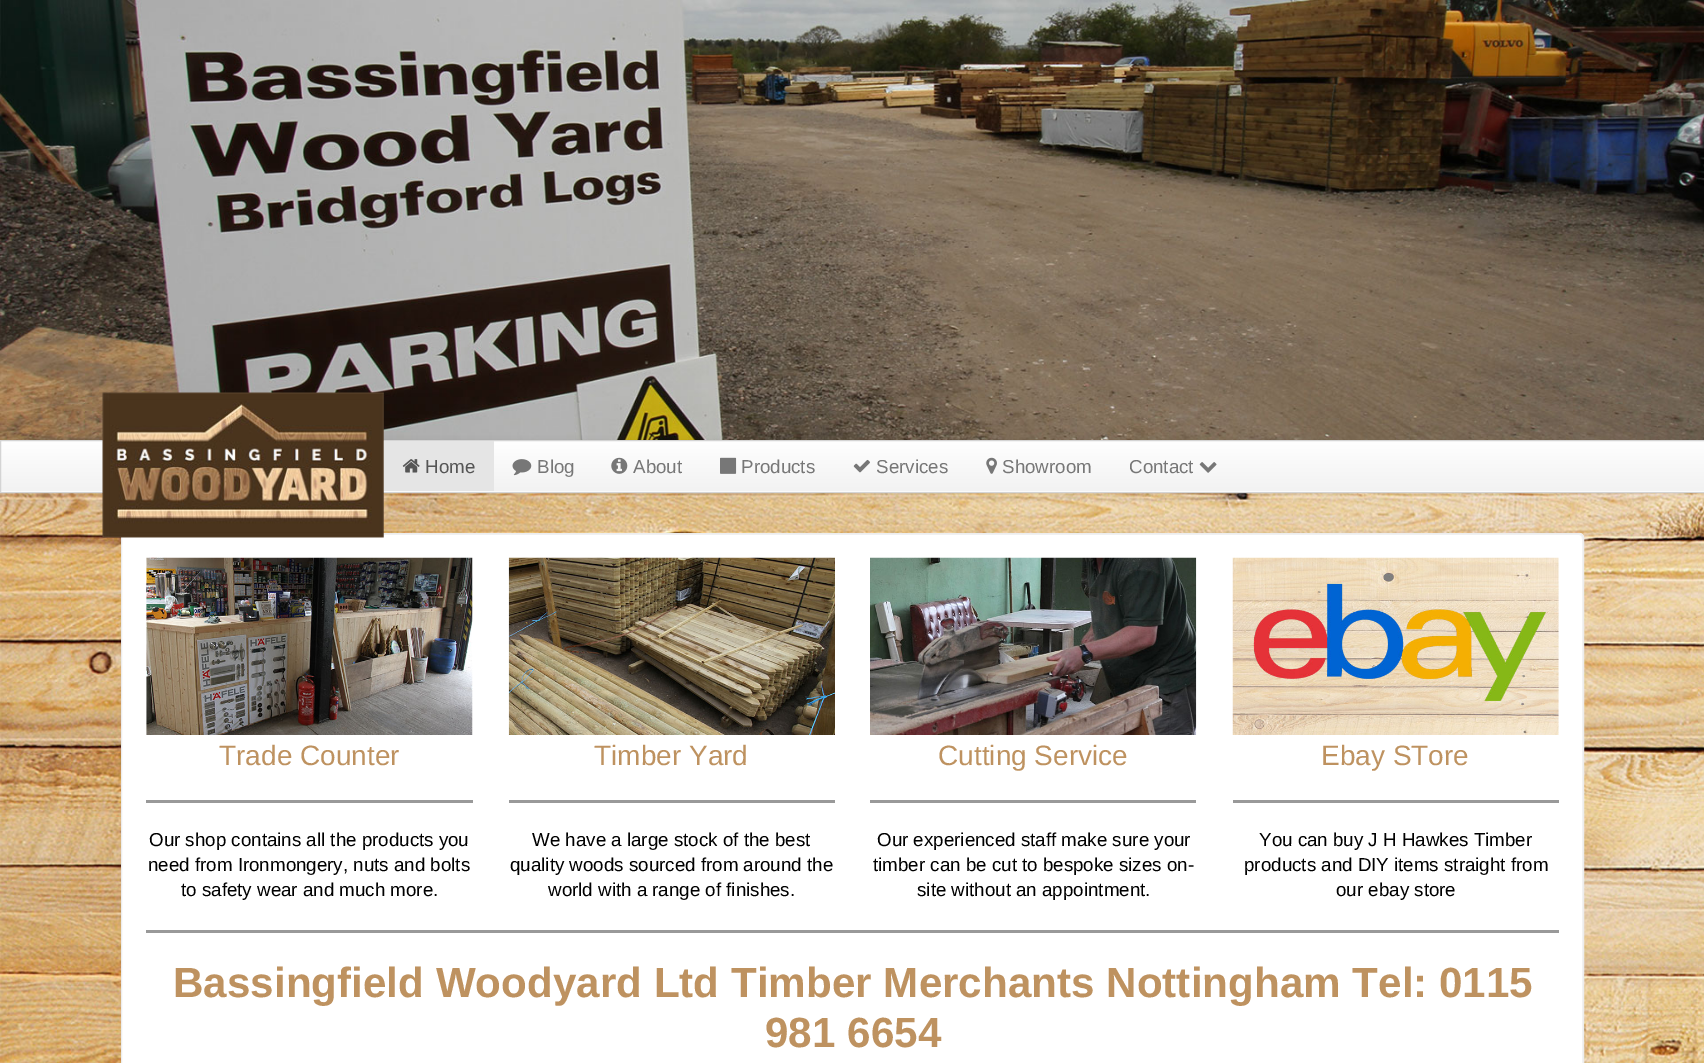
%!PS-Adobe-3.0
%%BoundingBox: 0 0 1704 1063
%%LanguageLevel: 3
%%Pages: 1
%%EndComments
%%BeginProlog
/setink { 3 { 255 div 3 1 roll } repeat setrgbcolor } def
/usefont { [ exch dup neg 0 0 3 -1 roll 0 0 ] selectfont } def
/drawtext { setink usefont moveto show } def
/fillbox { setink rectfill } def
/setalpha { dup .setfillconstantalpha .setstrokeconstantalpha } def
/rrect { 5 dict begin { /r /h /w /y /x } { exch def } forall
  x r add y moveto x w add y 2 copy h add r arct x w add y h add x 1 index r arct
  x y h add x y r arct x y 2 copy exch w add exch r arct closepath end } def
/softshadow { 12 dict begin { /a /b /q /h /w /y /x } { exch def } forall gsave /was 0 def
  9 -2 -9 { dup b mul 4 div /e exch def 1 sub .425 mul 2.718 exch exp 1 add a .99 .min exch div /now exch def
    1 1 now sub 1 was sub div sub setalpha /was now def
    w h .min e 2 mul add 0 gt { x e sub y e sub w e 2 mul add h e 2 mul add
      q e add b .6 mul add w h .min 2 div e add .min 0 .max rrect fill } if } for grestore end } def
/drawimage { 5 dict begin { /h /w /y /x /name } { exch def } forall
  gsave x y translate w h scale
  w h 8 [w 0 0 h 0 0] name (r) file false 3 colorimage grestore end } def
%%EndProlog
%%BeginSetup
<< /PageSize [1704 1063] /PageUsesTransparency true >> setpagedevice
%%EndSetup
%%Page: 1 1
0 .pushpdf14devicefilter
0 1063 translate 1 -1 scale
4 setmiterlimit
0 0 1704 1063 255 255 255 fillbox
(assets/img1.rgb) 0 493 1704 570 drawimage
(assets/img2.rgb) 0 0 1704 440 drawimage
0 0 0 setink
0 441 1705 53 0 2.5 0.07 softshadow
1 491 1703 1 250 250 250 fillbox
gsave 1 441 moveto 1704 441 lineto 1704 491 lineto 1 491 lineto closepath clip newpath
<< /ShadingType 2 /ColorSpace /DeviceRGB /Coords [853 441 853 491] /Extend [true true] /Function << /FunctionType 2 /Domain [0 1] /C0 [1 1 1] /C1 [0.949 0.949 0.949] /N 1 >> >> shfill grestore
212 212 212 setink
0.5 440.5 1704 52 rectstroke
255 255 255 setink
121 533 1463 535 5 rrect fill
242 242 242 setink
126 535 moveto 1579 535 lineto 1581 535 1582 537 1582 539 curveto 1582 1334 lineto 1583 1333 1583 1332 1583 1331 curveto 1583 538 lineto 1583 536 1581 534 1579 534 curveto 127 534 lineto 126 534 124 535 124 536 curveto closepath fill
237 237 237 setink
121.5 533.5 1462 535 4.5 rrect stroke
(assets/img3.rgb) 102 392 282 146 drawimage
384 441 110 50 229 229 229 fillbox
(assets/img4.rgb) 402 459 18 14 drawimage
(Home) 425 473 /LiberationSans-Regular 18.75 85 85 85 drawtext
(assets/img5.rgb) 512 459 20 17 drawimage
(Blog) 537 473 /LiberationSans-Regular 18.75 119 119 119 drawtext
(assets/img6.rgb) 611 457 17 17 drawimage
(About) 633 473 /LiberationSans-Regular 18.75 119 119 119 drawtext
(assets/img7.rgb) 720 457 17 17 drawimage
(Products) 741 473 /LiberationSans-Regular 18.75 119 119 119 drawtext
(assets/img8.rgb) 853 459 17 14 drawimage
(Services) 876 473 /LiberationSans-Regular 18.75 119 119 119 drawtext
(assets/img9.rgb) 986 457 11 17 drawimage
(Showroom) 1002 473 /LiberationSans-Regular 18.75 119 119 119 drawtext
(Contact) 1129 473 /LiberationSans-Regular 18.75 119 119 119 drawtext
(assets/img10.rgb) 1199 462 18 11 drawimage
(assets/img11.rgb) 146 557 327 178 drawimage
(Trade Counter) 219 765 /LiberationSans-Regular 28 190 146 96 drawtext
146 800 327 3 153 153 153 fillbox
(Our shop contains all the products you) 149 846 /LiberationSans-Regular 18.75 0 0 0 drawtext
(need from Ironmongery, nuts and bolts) 148 871 /LiberationSans-Regular 18.75 0 0 0 drawtext
(to safety wear and much more.) 181 896 /LiberationSans-Regular 18.75 0 0 0 drawtext
(assets/img12.rgb) 508 557 327 178 drawimage
(Timber Yard) 594 765 /LiberationSans-Regular 28 190 146 96 drawtext
509 800 326 3 153 153 153 fillbox
(We have a large stock of the best) 532 846 /LiberationSans-Regular 18.75 0 0 0 drawtext
(quality woods sourced from around the) 510 871 /LiberationSans-Regular 18.75 0 0 0 drawtext
(world with a range of finishes.) 548 896 /LiberationSans-Regular 18.75 0 0 0 drawtext
(assets/img13.rgb) 870 557 327 178 drawimage
(Cutting Service) 938 765 /LiberationSans-Regular 28 190 146 96 drawtext
870 800 326 3 153 153 153 fillbox
(Our experienced staff make sure your) 877 846 /LiberationSans-Regular 18.75 0 0 0 drawtext
(timber can be cut to bespoke sizes on-) 873 871 /LiberationSans-Regular 18.75 0 0 0 drawtext
(site without an appointment.) 917 896 /LiberationSans-Regular 18.75 0 0 0 drawtext
(assets/img14.rgb) 1232 557 327 178 drawimage
(Ebay STore) 1321 765 /LiberationSans-Regular 28 190 146 96 drawtext
1233 800 326 3 153 153 153 fillbox
(You can buy J H Hawkes Timber) 1259 846 /LiberationSans-Regular 18.75 0 0 0 drawtext
(products and DIY items straight from) 1244 871 /LiberationSans-Regular 18.75 0 0 0 drawtext
(our ebay store) 1336 896 /LiberationSans-Regular 18.75 0 0 0 drawtext
146 930 1413 3 153 153 153 fillbox
(Bassingfield Woodyard Ltd Timber Merchants Nottingham Tel: 0115) 173 997 /LiberationSans-Bold 42.2 190 146 96 drawtext
(981 6654) 765 1047 /LiberationSans-Bold 42.2 190 146 96 drawtext
.poppdf14devicefilter showpage
%%EOF
